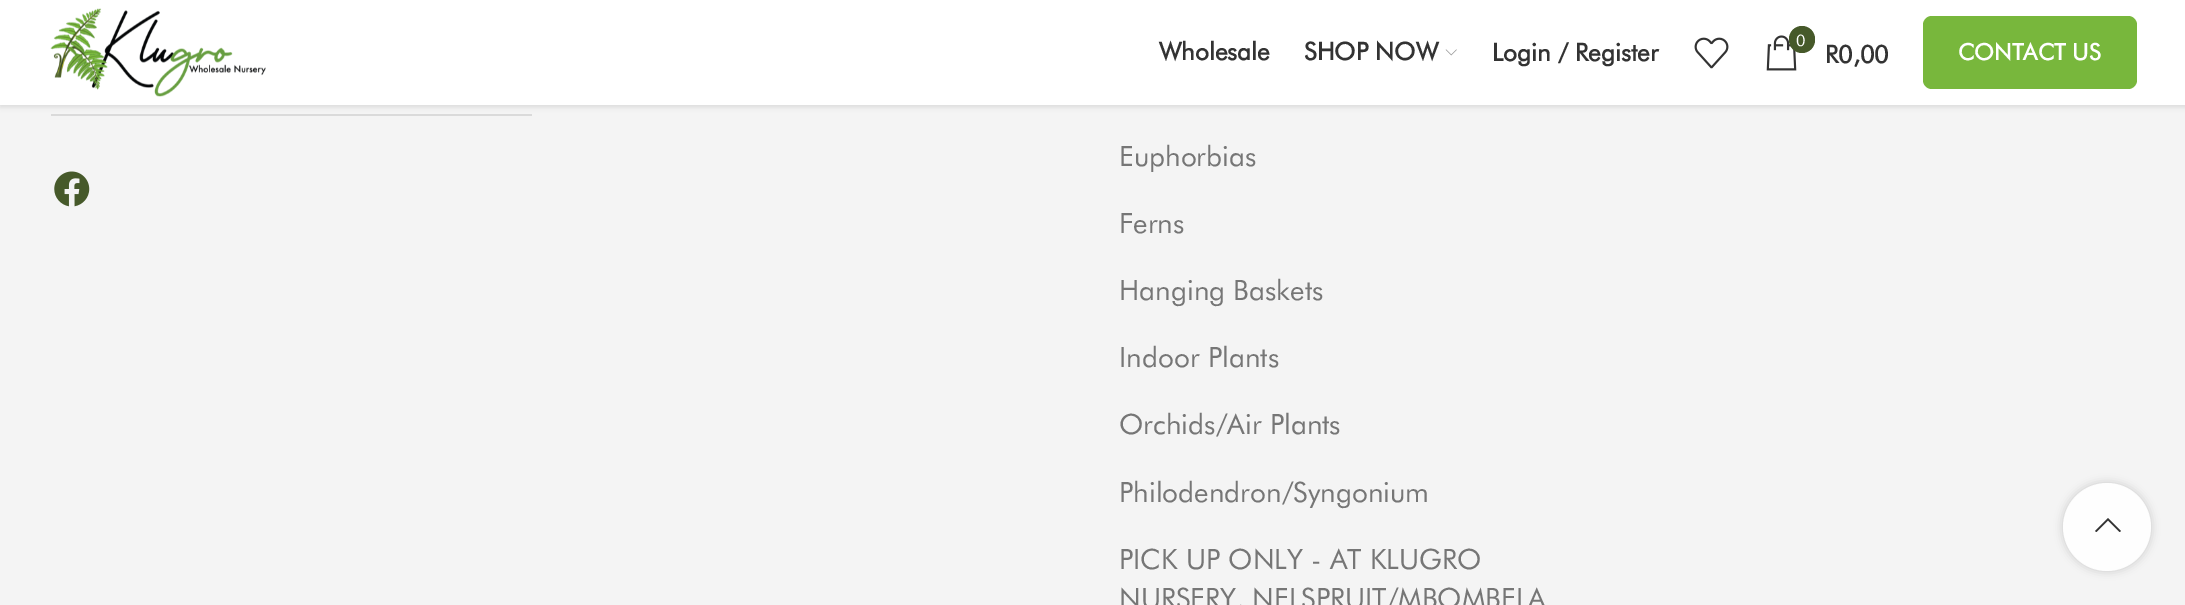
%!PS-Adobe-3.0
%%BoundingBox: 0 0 2185 605
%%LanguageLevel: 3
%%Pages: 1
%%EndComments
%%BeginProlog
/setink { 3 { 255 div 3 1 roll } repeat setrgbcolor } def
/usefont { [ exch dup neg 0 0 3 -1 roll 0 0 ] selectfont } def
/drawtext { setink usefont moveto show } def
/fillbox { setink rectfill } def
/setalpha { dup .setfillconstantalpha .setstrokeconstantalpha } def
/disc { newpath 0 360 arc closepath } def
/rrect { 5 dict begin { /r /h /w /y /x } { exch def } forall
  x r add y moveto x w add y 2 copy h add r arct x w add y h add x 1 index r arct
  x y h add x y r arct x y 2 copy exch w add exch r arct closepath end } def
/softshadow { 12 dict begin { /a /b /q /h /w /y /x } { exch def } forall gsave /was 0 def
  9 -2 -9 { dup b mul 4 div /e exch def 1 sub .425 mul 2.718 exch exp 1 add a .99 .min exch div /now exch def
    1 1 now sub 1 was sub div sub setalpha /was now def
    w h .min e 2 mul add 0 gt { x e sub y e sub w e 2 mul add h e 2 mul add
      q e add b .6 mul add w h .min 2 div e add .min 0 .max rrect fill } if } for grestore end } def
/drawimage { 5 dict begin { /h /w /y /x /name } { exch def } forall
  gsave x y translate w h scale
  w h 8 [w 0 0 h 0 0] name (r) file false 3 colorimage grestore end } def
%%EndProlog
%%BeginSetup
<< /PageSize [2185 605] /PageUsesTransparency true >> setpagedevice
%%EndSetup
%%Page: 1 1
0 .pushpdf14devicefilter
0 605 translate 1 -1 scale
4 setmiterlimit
0 0 2185 605 244 244 244 fillbox
51 114 481 2 218 218 218 fillbox
0 0 0 setink
0 2 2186 105 0 2.5 0.1 softshadow
0 0 2185 105 255 255 255 fillbox
(assets/img1.rgb) 50 8 216 89 drawimage
(Wholesale) 1159 60 /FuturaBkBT-Bold 24.5 51 51 51 drawtext
(SHOP NOW) 1304 60 /FuturaBkBT-Bold 24.5 51 51 51 drawtext
(assets/img2.rgb) 1445 49 12 7 drawimage
(Login / Register) 1492 61 /FuturaBkBT-Bold 24.5 51 51 51 drawtext
(assets/img3.rgb) 1694 37 35 32 drawimage
(assets/img4.rgb) 1766 35 31 36 drawimage
70 89 42 setink
1789 26 26 27 13 rrect fill
(0) 1796 46 /FuturaBkBT-Regular 16 255 255 255 drawtext
(R0,00) 1825 63 /FuturaBkBT-Bold 24.5 51 51 51 drawtext
120 183 60 setink
1923 16 214 73 9 rrect fill
(CONTACT US) 1958 60 /FuturaBkBT-Bold 22.75 255 255 255 drawtext
(assets/img5.rgb) 54 171 36 36 drawimage
(Euphorbias) 1119 166 /FuturaBkBT-Regular 28 118 118 118 drawtext
(Ferns) 1119 233 /FuturaBkBT-Regular 28 118 118 118 drawtext
(Hanging Baskets) 1119 300 /FuturaBkBT-Regular 28 118 118 118 drawtext
(Indoor Plants) 1119 367 /FuturaBkBT-Regular 28 118 118 118 drawtext
(Orchids/Air Plants) 1119 434 /FuturaBkBT-Regular 28 118 118 118 drawtext
(Philodendron/Syngonium) 1119 502 /FuturaBkBT-Regular 28 118 118 118 drawtext
(PICK UP ONLY - AT KLUGRO) 1119 569 /FuturaBkBT-Regular 28 118 118 118 drawtext
(NURSERY, NELSPRUIT/MBOMBELA) 1119 608 /FuturaBkBT-Regular 28 118 118 118 drawtext
gsave
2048 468 moveto 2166 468 lineto 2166 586 lineto 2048 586 lineto closepath 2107 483 moveto 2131.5 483 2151 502.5 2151 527 curveto 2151 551.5 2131.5 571 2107 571 curveto 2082.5 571 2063 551.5 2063 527 curveto 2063 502.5 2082.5 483 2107 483 curveto closepath eoclip newpath
0 0 0 setink
2063 483 88 88 44 4.5 0.17 softshadow
grestore
0.9 setalpha
255 255 255 setink
2107 527 44 disc fill
1 setalpha
51 51 51 setink
2119.5 532 moveto 2121 531 lineto 2108 518 lineto 2095 531 lineto 2096.5 532 lineto 2108 520.5 lineto closepath fill
.poppdf14devicefilter showpage
%%EOF
